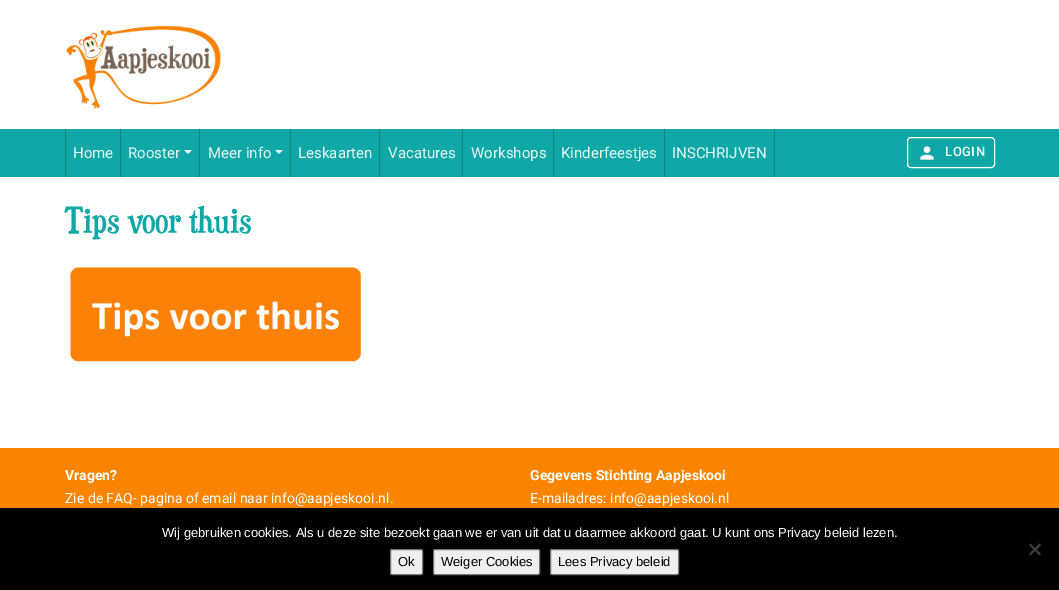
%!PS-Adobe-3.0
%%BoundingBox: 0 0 1059 590
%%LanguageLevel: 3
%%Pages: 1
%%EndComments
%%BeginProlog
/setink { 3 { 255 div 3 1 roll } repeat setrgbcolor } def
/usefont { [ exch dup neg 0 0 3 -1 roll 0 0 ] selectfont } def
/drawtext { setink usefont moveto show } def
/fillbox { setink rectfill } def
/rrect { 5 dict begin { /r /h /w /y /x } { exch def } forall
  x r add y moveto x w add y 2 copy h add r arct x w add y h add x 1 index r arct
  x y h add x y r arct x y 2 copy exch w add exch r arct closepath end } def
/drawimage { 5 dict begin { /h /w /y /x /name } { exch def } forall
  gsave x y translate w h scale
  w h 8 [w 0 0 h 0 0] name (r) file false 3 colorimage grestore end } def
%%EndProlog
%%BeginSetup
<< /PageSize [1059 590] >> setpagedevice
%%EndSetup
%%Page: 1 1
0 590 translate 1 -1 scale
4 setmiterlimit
0 0 1059 590 255 255 255 fillbox
(assets/img1.rgb) 65 25 156 84 drawimage
0 129 1059 48 16 168 166 fillbox
120 129 1 48 13 134 133 fillbox
65 129 1 48 13 134 133 fillbox
(Home) 73 158 /Roboto-Regular 15 231 246 246 drawtext
199 129 1 48 13 134 133 fillbox
(Rooster) 128 158 /Roboto-Regular 15 231 246 246 drawtext
184 150 moveto 192 150 lineto 188 154 lineto closepath fill
290 129 1 48 13 134 133 fillbox
(Meer info) 208 158 /Roboto-Regular 15 231 246 246 drawtext
275 150 moveto 283 150 lineto 279 154 lineto closepath fill
379 129 1 48 13 134 133 fillbox
(Leskaarten) 298 158 /Roboto-Regular 15 231 246 246 drawtext
462 129 1 48 13 134 133 fillbox
(Vacatures) 388 158 /Roboto-Regular 15 231 246 246 drawtext
553 129 1 48 13 134 133 fillbox
(Workshops) 471 158 /Roboto-Regular 15 231 246 246 drawtext
664 129 1 48 13 134 133 fillbox
(Kinderfeestjes) 561 158 /Roboto-Regular 15 231 246 246 drawtext
774 129 1 48 13 134 133 fillbox
(INSCHRIJVEN) 672 158 /Roboto-Regular 15 231 246 246 drawtext
255 255 255 setink
907.5 137.5 87 30 3.5 rrect stroke
(assets/img2.rgb) 920 146 14 14 drawimage
/Roboto-Medium 13 usefont
945 156 moveto 0.5 0 (LOGIN) ashow
(Tips voor thuis) 65 233 /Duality-Regular 36 16 168 166 drawtext
(assets/img3.rgb) 70 267 291 95 drawimage
0 448 1059 60 250 132 0 fillbox
(Vragen?) 65 480 /Roboto-Bold 14 255 255 255 drawtext
(Zie de FAQ- pagina of email naar info@aapjeskooi.nl.) 65 503 /Roboto-Regular 14 255 255 255 drawtext
(Gegevens Stichting Aapjeskooi) 530 480 /Roboto-Bold 14 255 255 255 drawtext
(E-mailadres: info@aapjeskooi.nl) 530 503 /Roboto-Regular 14 255 255 255 drawtext
0 508 1059 82 0 0 0 fillbox
(Wij gebruiken cookies. Als u deze site bezoekt gaan we er van uit dat u daarmee akkoord gaat. U kunt ons Privacy beleid lezen.) 162 537 /LiberationSans-Regular 13 255 255 255 drawtext
64 64 64 setink
1039.5 543.5 moveto 1041 545 lineto 1030.5 555.5 lineto 1029 554 lineto closepath fill
1029 545 moveto 1030.5 543.5 lineto 1041 554 lineto 1039.5 555.5 lineto closepath fill
239 239 239 setink
390.5 549.5 32 25 1.5 rrect gsave fill grestore
118 118 118 setink
stroke
(Ok) 398 566 /LiberationSans-Regular 13 0 0 0 drawtext
239 239 239 setink
433.5 549.5 106 25 1.5 rrect gsave fill grestore
118 118 118 setink
stroke
(Weiger Cookies) 441 566 /LiberationSans-Regular 13 0 0 0 drawtext
239 239 239 setink
550.5 549.5 128 25 1.5 rrect gsave fill grestore
118 118 118 setink
stroke
(Lees Privacy beleid) 558 566 /LiberationSans-Regular 13 0 0 0 drawtext
showpage
%%EOF
